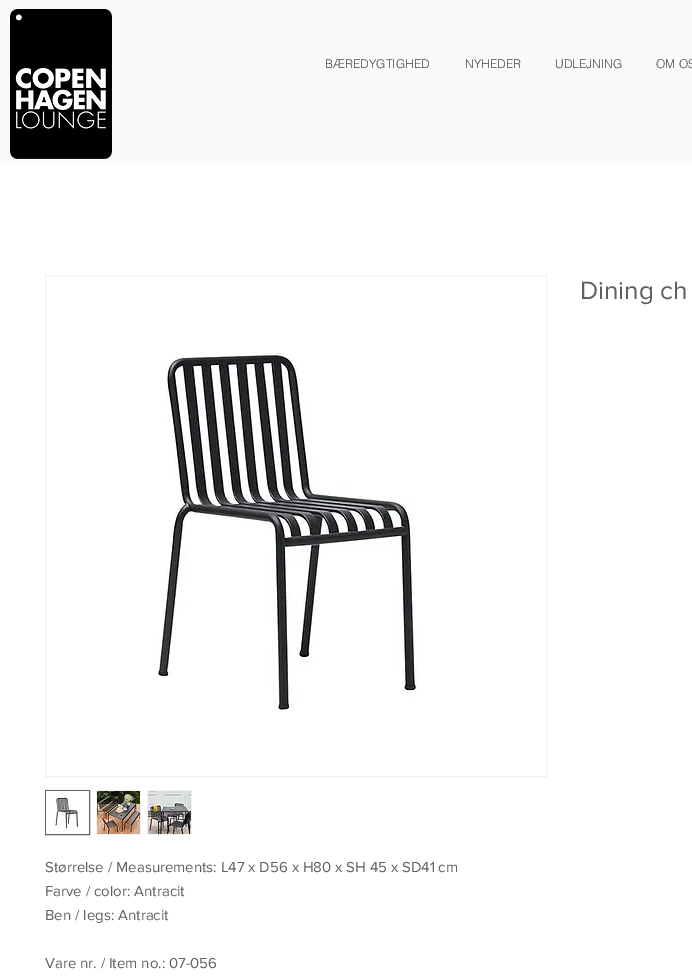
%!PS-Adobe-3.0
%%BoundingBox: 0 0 692 980
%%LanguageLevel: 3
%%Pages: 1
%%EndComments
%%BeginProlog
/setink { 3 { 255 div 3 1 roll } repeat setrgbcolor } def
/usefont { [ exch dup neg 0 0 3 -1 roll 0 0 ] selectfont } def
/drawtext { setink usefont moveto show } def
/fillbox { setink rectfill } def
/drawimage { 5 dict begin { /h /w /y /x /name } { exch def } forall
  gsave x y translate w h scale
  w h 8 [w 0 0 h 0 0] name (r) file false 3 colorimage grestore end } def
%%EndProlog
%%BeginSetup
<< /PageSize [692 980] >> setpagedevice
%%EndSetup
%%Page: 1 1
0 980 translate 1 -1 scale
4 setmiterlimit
0 0 692 980 255 255 255 fillbox
0 0 692 164 250 250 250 fillbox
(assets/img1.rgb) 10 9 102 150 drawimage
(BÆREDYGTIGHED) 325 68 /helvetica-Light 12 68 68 68 drawtext
(NYHEDER) 465 68 /helvetica-Light 12 68 68 68 drawtext
(UDLEJNING) 555 68 /helvetica-Light 12 68 68 68 drawtext
(OM OS) 656 68 /helvetica-Light 12 68 68 68 drawtext
(Dining ch) 580 299 /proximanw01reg-Regular 26 96 96 96 drawtext
242 242 242 setink
45.5 275.5 501 501 rectstroke
(assets/img2.rgb) 158 352 260 360 drawimage
96 96 96 setink
45.5 790.5 44 44 rectstroke
(assets/img3.rgb) 46 791 43 43 drawimage
96 790 45 45 242 242 242 fillbox
(assets/img4.rgb) 97 791 43 43 drawimage
147 790 45 45 242 242 242 fillbox
(assets/img5.rgb) 148 791 43 43 drawimage
(Størrelse / Measurements: L47 x D56 x H80 x SH 45 x SD41 cm) 45 872 /proximanw01reg-Regular 15 96 96 96 drawtext
(Farve / color: Antracit) 45 896 /proximanw01reg-Regular 15 96 96 96 drawtext
(Ben / legs: Antracit) 45 920 /proximanw01reg-Regular 15 96 96 96 drawtext
(Vare nr. / Item no.: 07-056) 45 968 /proximanw01reg-Regular 15 96 96 96 drawtext
showpage
%%EOF
